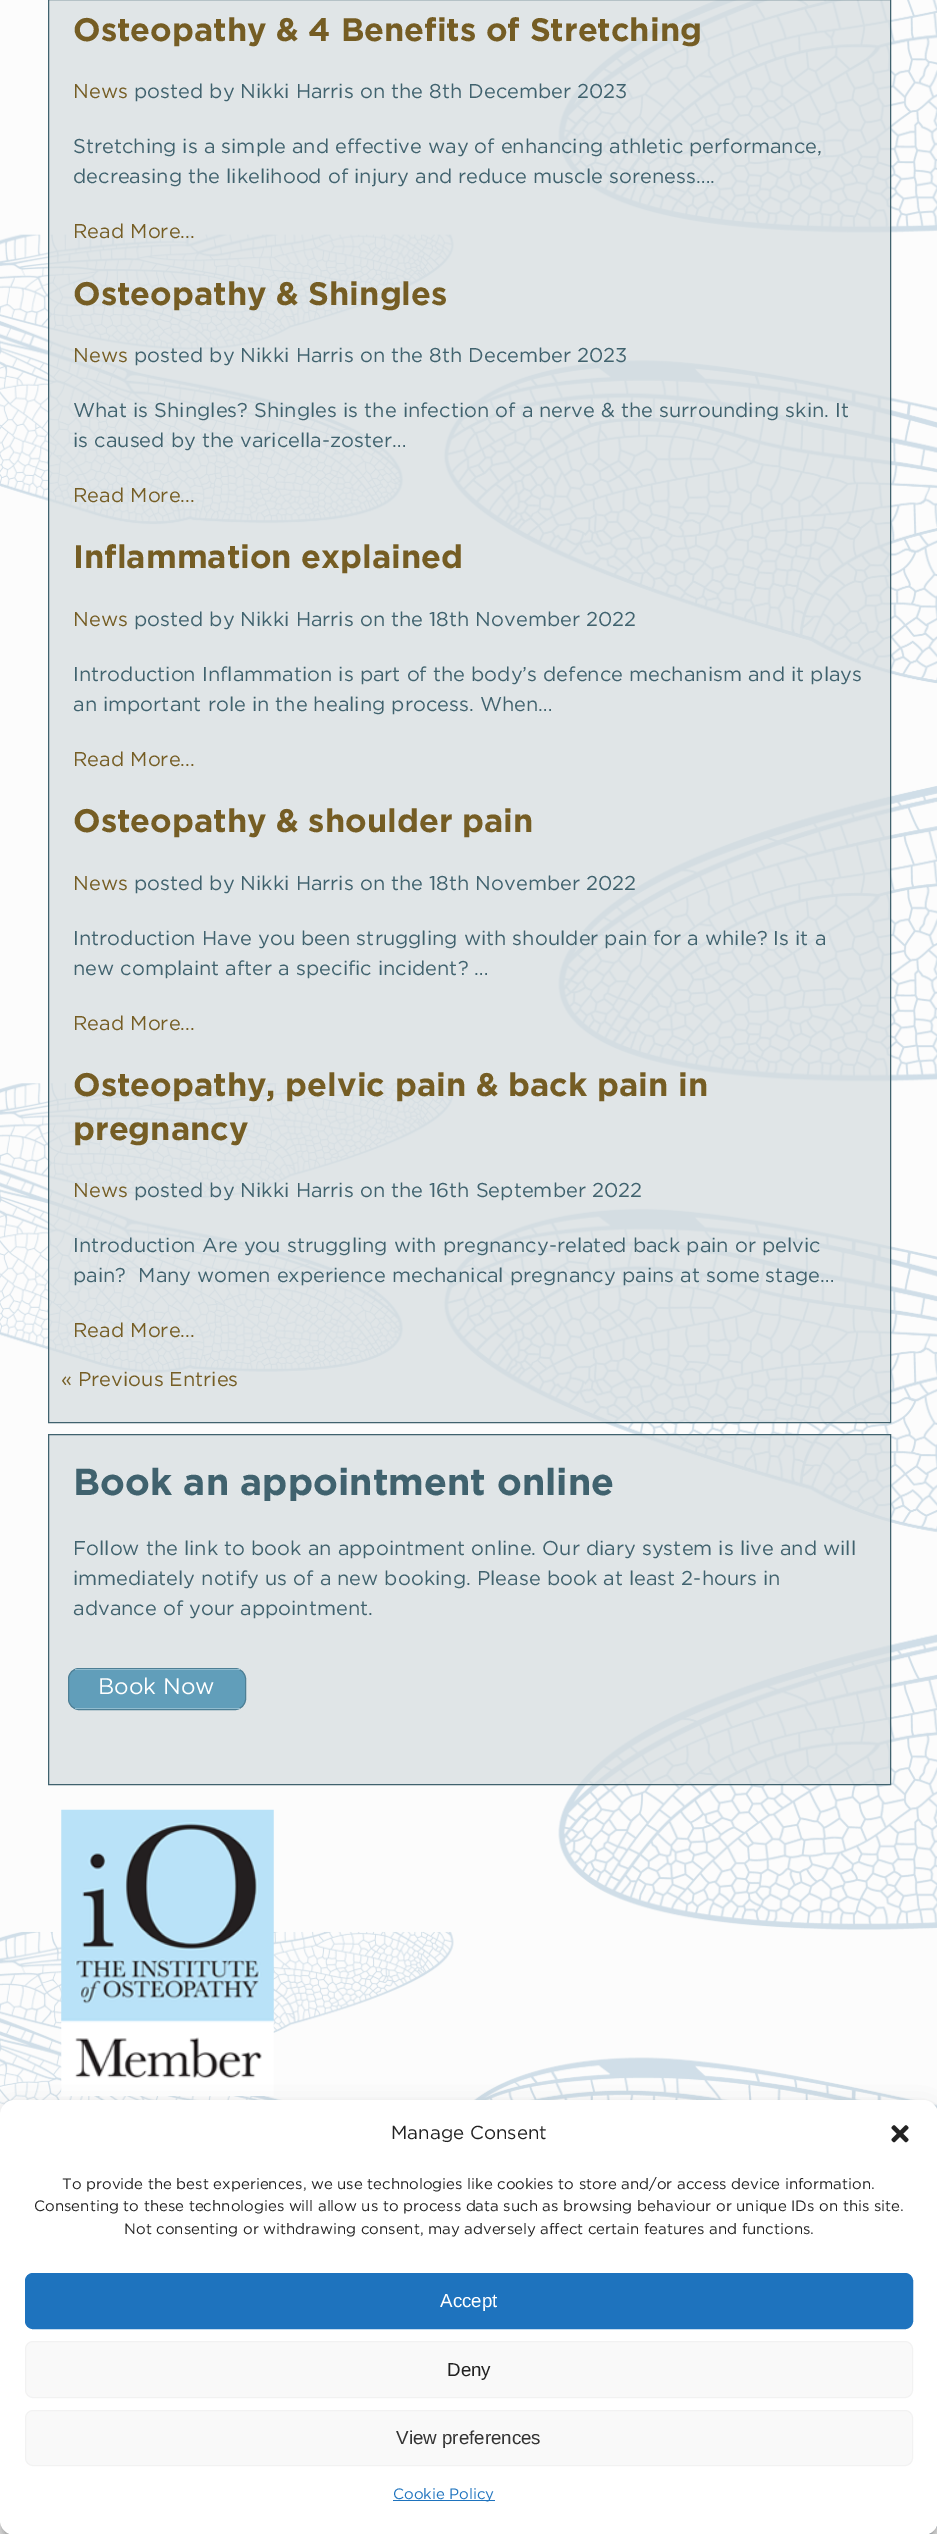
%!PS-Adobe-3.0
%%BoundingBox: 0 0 937 2534
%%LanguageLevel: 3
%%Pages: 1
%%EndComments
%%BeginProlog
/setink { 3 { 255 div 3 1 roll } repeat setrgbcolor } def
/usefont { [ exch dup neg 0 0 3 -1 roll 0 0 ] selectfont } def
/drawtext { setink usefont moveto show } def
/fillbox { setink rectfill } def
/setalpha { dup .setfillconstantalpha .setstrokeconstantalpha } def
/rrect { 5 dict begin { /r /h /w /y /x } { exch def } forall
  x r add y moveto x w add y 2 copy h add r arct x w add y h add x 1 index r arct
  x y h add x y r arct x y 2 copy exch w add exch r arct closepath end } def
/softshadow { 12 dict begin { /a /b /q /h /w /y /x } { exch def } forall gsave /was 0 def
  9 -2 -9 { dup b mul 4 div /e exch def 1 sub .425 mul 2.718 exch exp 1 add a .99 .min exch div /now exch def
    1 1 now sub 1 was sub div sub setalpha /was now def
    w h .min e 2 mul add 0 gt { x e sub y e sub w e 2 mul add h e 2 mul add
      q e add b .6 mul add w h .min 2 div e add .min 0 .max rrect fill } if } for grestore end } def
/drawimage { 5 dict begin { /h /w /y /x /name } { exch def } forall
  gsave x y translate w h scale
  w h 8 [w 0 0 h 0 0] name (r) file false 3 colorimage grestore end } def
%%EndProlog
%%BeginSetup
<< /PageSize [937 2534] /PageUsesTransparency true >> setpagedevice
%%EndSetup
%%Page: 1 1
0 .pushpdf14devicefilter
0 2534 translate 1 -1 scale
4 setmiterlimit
0 0 937 2534 252 252 252 fillbox
(assets/img1.rgb) 0 0 937 2534 drawimage
0.75 setalpha
214 221 224 setink
48.5 -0.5 moveto 890.5 -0.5 lineto 890.5 1422.5 lineto 48.5 1422.5 lineto closepath fill
1 setalpha
64 98 110 setink
48.5 -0.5 moveto 890.5 -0.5 lineto 890.5 1422.5 lineto 48.5 1422.5 lineto closepath stroke
(Osteopathy & 4 Benefits of Stretching) 73 41 /Gotham-Bold 32.5 117 93 36 drawtext
(News) 73 98 /Gotham-Regular 20 117 93 36 drawtext
(posted by Nikki Harris on the 8th December 2023) 134 98 /Gotham-Regular 20 64 98 110 drawtext
(Stretching is a simple and effective way of enhancing athletic performance,) 73 153 /Gotham-Regular 20 64 98 110 drawtext
(decreasing the likelihood of injury and reduce muscle soreness….) 73 183 /Gotham-Regular 20 64 98 110 drawtext
(Read More...) 73 238 /Gotham-Regular 20 117 93 36 drawtext
(Osteopathy & Shingles) 73 305 /Gotham-Bold 32.5 117 93 36 drawtext
(News) 73 362 /Gotham-Regular 20 117 93 36 drawtext
(posted by Nikki Harris on the 8th December 2023) 134 362 /Gotham-Regular 20 64 98 110 drawtext
(What is Shingles? Shingles is the infection of a nerve & the surrounding skin. It) 73 417 /Gotham-Regular 20 64 98 110 drawtext
(is caused by the varicella-zoster…) 73 447 /Gotham-Regular 20 64 98 110 drawtext
(Read More...) 73 502 /Gotham-Regular 20 117 93 36 drawtext
(Inflammation explained) 73 568 /Gotham-Bold 32.5 117 93 36 drawtext
(News) 73 626 /Gotham-Regular 20 117 93 36 drawtext
(posted by Nikki Harris on the 18th November 2022) 134 626 /Gotham-Regular 20 64 98 110 drawtext
(Introduction Inflammation is part of the body’s defence mechanism and it plays) 73 681 /Gotham-Regular 20 64 98 110 drawtext
(an important role in the healing process. When…) 73 711 /Gotham-Regular 20 64 98 110 drawtext
(Read More...) 73 766 /Gotham-Regular 20 117 93 36 drawtext
(Osteopathy & shoulder pain) 73 832 /Gotham-Bold 32.5 117 93 36 drawtext
(News) 73 890 /Gotham-Regular 20 117 93 36 drawtext
(posted by Nikki Harris on the 18th November 2022) 134 890 /Gotham-Regular 20 64 98 110 drawtext
(Introduction Have you been struggling with shoulder pain for a while? Is it a) 73 945 /Gotham-Regular 20 64 98 110 drawtext
(new complaint after a specific incident? …) 73 975 /Gotham-Regular 20 64 98 110 drawtext
(Read More...) 73 1030 /Gotham-Regular 20 117 93 36 drawtext
(Osteopathy, pelvic pain & back pain in) 73 1096 /Gotham-Bold 32.5 117 93 36 drawtext
(pregnancy) 73 1140 /Gotham-Bold 32.5 117 93 36 drawtext
(News) 73 1197 /Gotham-Regular 20 117 93 36 drawtext
(posted by Nikki Harris on the 16th September 2022) 134 1197 /Gotham-Regular 20 64 98 110 drawtext
(Introduction Are you struggling with pregnancy-related back pain or pelvic) 73 1252 /Gotham-Regular 20 64 98 110 drawtext
(pain?  Many women experience mechanical pregnancy pains at some stage…) 73 1282 /Gotham-Regular 20 64 98 110 drawtext
(Read More...) 73 1337 /Gotham-Regular 20 117 93 36 drawtext
(« Previous Entries) 61 1386 /Gotham-Regular 20 117 93 36 drawtext
0.75 setalpha
214 221 224 setink
48.5 1434.5 moveto 890.5 1434.5 lineto 890.5 1784.5 lineto 48.5 1784.5 lineto closepath fill
1 setalpha
64 98 110 setink
48.5 1434.5 moveto 890.5 1434.5 lineto 890.5 1784.5 lineto 48.5 1784.5 lineto closepath stroke
(Book an appointment online) 73 1495 /Gotham-Bold 37.5 64 98 110 drawtext
(Follow the link to book an appointment online. Our diary system is live and will) 73 1555 /Gotham-Regular 20 64 98 110 drawtext
(immediately notify us of a new booking. Please book at least 2-hours in) 73 1585 /Gotham-Regular 20 64 98 110 drawtext
(advance of your appointment.) 73 1615 /Gotham-Regular 20 64 98 110 drawtext
97 158 186 setink
68.5 1668.5 177 41 10.5 rrect gsave fill grestore
78 127 149 setink
stroke
75 1669 165 1 145 188 207 fillbox
75 1708 165 1 145 188 207 fillbox
(Book Now) 98 1694 /Gotham-Regular 22.5 255 255 255 drawtext
(assets/img2.rgb) 61 1809 213 287 drawimage
0 0 0 setink
0 2108 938 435 15 4 0.23 softshadow
0 2113 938 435 15 12.5 0.19 softshadow
255 255 255 setink
0 2100 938 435 15 rrect fill
(Manage Consent) 391 2139 /Gotham-Regular 18.75 34 34 34 drawtext
(assets/img3.rgb) 891 2125 18 18 drawimage
(To provide the best experiences, we use technologies like cookies to store and/or access device information.) 62 2189 /Gotham-Regular 15 34 34 34 drawtext
(Consenting to these technologies will allow us to process data such as browsing behaviour or unique IDs on this site.) 34 2211 /Gotham-Regular 15 34 34 34 drawtext
(Not consenting or withdrawing consent, may adversely affect certain features and functions.) 124 2234 /Gotham-Regular 15 34 34 34 drawtext
30 115 190 setink
25.5 2273.5 887 55 7.5 rrect gsave fill grestore
stroke
(Accept) 440 2307 /LiberationSans-Regular 18.75 255 255 255 drawtext
249 249 249 setink
25.5 2341.5 887 56 7.5 rrect gsave fill grestore
242 242 242 setink
stroke
(Deny) 447 2376 /LiberationSans-Regular 18.75 34 34 34 drawtext
249 249 249 setink
25.5 2410.5 887 55 7.5 rrect gsave fill grestore
242 242 242 setink
stroke
(View preferences) 396 2444 /LiberationSans-Regular 18.75 51 51 51 drawtext
393 2500 102 1 30 115 190 fillbox
(Cookie Policy) 393 2499 /Gotham-Regular 15 30 115 190 drawtext
.poppdf14devicefilter showpage
%%EOF
